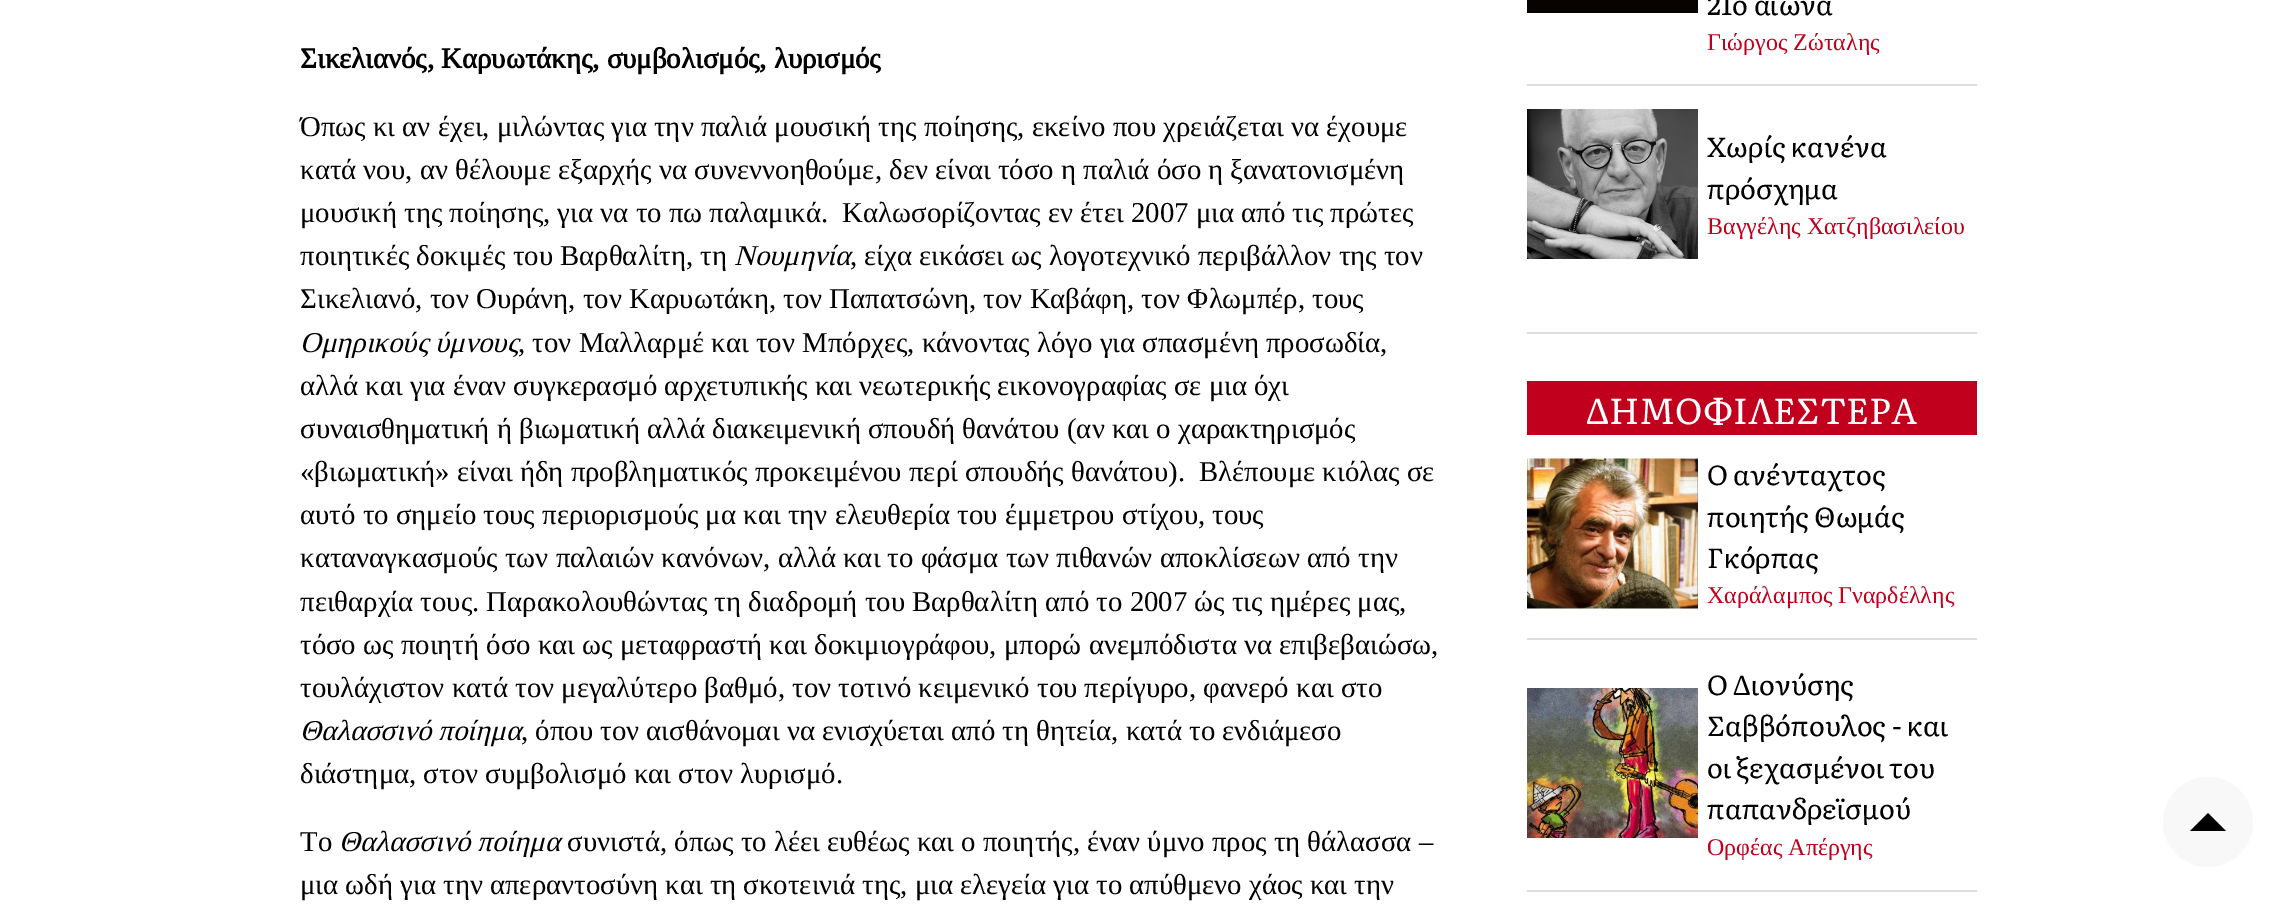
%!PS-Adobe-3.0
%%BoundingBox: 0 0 2276 914
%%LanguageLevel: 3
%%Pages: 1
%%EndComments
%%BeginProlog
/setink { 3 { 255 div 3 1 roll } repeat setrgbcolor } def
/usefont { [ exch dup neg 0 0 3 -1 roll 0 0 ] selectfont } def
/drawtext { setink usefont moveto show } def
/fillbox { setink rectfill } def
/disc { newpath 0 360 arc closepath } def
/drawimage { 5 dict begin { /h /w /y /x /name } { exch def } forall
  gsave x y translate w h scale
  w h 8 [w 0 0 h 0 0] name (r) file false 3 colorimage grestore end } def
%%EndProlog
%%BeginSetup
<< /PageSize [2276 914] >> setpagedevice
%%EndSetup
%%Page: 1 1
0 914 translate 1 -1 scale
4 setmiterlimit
0 0 2276 914 255 255 255 fillbox
(Σικελιανός, Καρυωτάκης, συμβολισμός, λυρισμός) 300 68 /Tinos-Bold 28.8 0 0 0 drawtext
(Όπως κι αν έχει, μιλώντας για την παλιά μουσική της ποίησης, εκείνο που χρειάζεται να έχουμε) 300 136 /Tinos-Regular 28.8 0 0 0 drawtext
(κατά νου, αν θέλουμε εξαρχής να συνεννοηθούμε, δεν είναι τόσο η παλιά όσο η ξανατονισμένη) 300 179 /Tinos-Regular 28.8 0 0 0 drawtext
(μουσική της ποίησης, για να το πω παλαμικά.  Καλωσορίζοντας εν έτει 2007 μια από τις πρώτες) 300 222 /Tinos-Regular 28.8 0 0 0 drawtext
(ποιητικές δοκιμές του Βαρθαλίτη, τη) 300 265 /Tinos-Regular 28.8 0 0 0 drawtext
(Νουμηνία) 734 265 /Tinos-Italic 28.8 0 0 0 drawtext
(, είχα εικάσει ως λογοτεχνικό περιβάλλον της τον) 850 265 /Tinos-Regular 28.8 0 0 0 drawtext
(Σικελιανό, τον Ουράνη, τον Καρυωτάκη, τον Παπατσώνη, τον Καβάφη, τον Φλωμπέρ, τους) 300 308 /Tinos-Regular 28.8 0 0 0 drawtext
(Ομηρικούς ύμνους) 300 352 /Tinos-Italic 28.8 0 0 0 drawtext
(, τον Μαλλαρμέ και τον Μπόρχες, κάνοντας λόγο για σπασμένη προσωδία,) 518 352 /Tinos-Regular 28.8 0 0 0 drawtext
(αλλά και για έναν συγκερασμό αρχετυπικής και νεωτερικής εικονογραφίας σε μια όχι) 300 395 /Tinos-Regular 28.8 0 0 0 drawtext
(συναισθηματική ή βιωματική αλλά διακειμενική σπουδή θανάτου \(αν και ο χαρακτηρισμός) 300 438 /Tinos-Regular 28.8 0 0 0 drawtext
(«βιωματική» είναι ήδη προβληματικός προκειμένου περί σπουδής θανάτου\).  Βλέπουμε κιόλας σε) 300 481 /Tinos-Regular 28.8 0 0 0 drawtext
(αυτό το σημείο τους περιορισμούς μα και την ελευθερία του έμμετρου στίχου, τους) 300 524 /Tinos-Regular 28.8 0 0 0 drawtext
(καταναγκασμούς των παλαιών κανόνων, αλλά και το φάσμα των πιθανών αποκλίσεων από την) 300 567 /Tinos-Regular 28.8 0 0 0 drawtext
(πειθαρχία τους. Παρακολουθώντας τη διαδρομή του Βαρθαλίτη από το 2007 ώς τις ημέρες μας,) 300 611 /Tinos-Regular 28.8 0 0 0 drawtext
(τόσο ως ποιητή όσο και ως μεταφραστή και δοκιμιογράφου, μπορώ ανεμπόδιστα να επιβεβαιώσω,) 300 654 /Tinos-Regular 28.8 0 0 0 drawtext
(τουλάχιστον κατά τον μεγαλύτερο βαθμό, τον τοτινό κειμενικό του περίγυρο, φανερό και στο) 300 697 /Tinos-Regular 28.8 0 0 0 drawtext
(Θαλασσινό ποίημα) 300 740 /Tinos-Italic 28.8 0 0 0 drawtext
(, όπου τον αισθάνομαι να ενισχύεται από τη θητεία, κατά το ενδιάμεσο) 521 740 /Tinos-Regular 28.8 0 0 0 drawtext
(διάστημα, στον συμβολισμό και στον λυρισμό.) 300 783 /Tinos-Regular 28.8 0 0 0 drawtext
(Το) 300 851 /Tinos-Regular 28.8 0 0 0 drawtext
(Θαλασσινό ποίημα) 339 851 /Tinos-Italic 28.8 0 0 0 drawtext
(συνιστά, όπως το λέει ευθέως και ο ποιητής, έναν ύμνο προς τη θάλασσα –) 567 851 /Tinos-Regular 28.8 0 0 0 drawtext
(μια ωδή για την απεραντοσύνη και τη σκοτεινιά της, μια ελεγεία για το απύθμενο χάος και την) 300 894 /Tinos-Regular 28.8 0 0 0 drawtext
1527 332 450 2 221 221 221 fillbox
1527 84 450 2 221 221 221 fillbox
1527 0 171 13 8 3 0 fillbox
(21ο αιώνα) 1707 15 /Literata-Regular 27.5 0 0 0 drawtext
(Γιώργος Ζώταλης) 1707 50 /Tinos-Regular 24 193 0 30 drawtext
(assets/img1.rgb) 1527 109 171 150 drawimage
(Χωρίς κανένα) 1707 157 /Literata-Regular 27.5 0 0 0 drawtext
(πρόσχημα) 1707 199 /Literata-Regular 27.5 0 0 0 drawtext
(Βαγγέλης Χατζηβασιλείου) 1707 234 /Tinos-Regular 24 193 0 30 drawtext
1527 381 450 54 193 0 30 fillbox
(ΔΗΜΟΦΙΛΕΣΤΕΡΑ) 1586 424 /Literata-Regular 36 255 255 255 drawtext
1527 638 450 2 221 221 221 fillbox
(assets/img2.rgb) 1527 458 171 151 drawimage
(Ο ανένταχτος) 1707 485 /Literata-Regular 27.5 0 0 0 drawtext
(ποιητής Θωμάς) 1707 527 /Literata-Regular 27.5 0 0 0 drawtext
(Γκόρπας) 1707 568 /Literata-Regular 27.5 0 0 0 drawtext
(Χαράλαμπος Γναρδέλλης) 1707 603 /Tinos-Regular 24 193 0 30 drawtext
1527 890 450 2 221 221 221 fillbox
(assets/img3.rgb) 1527 688 171 150 drawimage
(O Διονύσης) 1707 695 /Literata-Regular 27.5 0 0 0 drawtext
(Σαββόπουλος - και) 1707 736 /Literata-Regular 27.5 0 0 0 drawtext
(οι ξεχασμένοι του) 1707 778 /Literata-Regular 27.5 0 0 0 drawtext
(παπανδρεϊσμού) 1707 819 /Literata-Regular 27.5 0 0 0 drawtext
(Ορφέας Απέργης) 1707 855 /Tinos-Regular 24 193 0 30 drawtext
248 248 248 setink
2208 822 45 disc fill
0 0 0 setink
2226 831 moveto 2190 831 lineto 2208 813 lineto closepath fill
showpage
%%EOF
